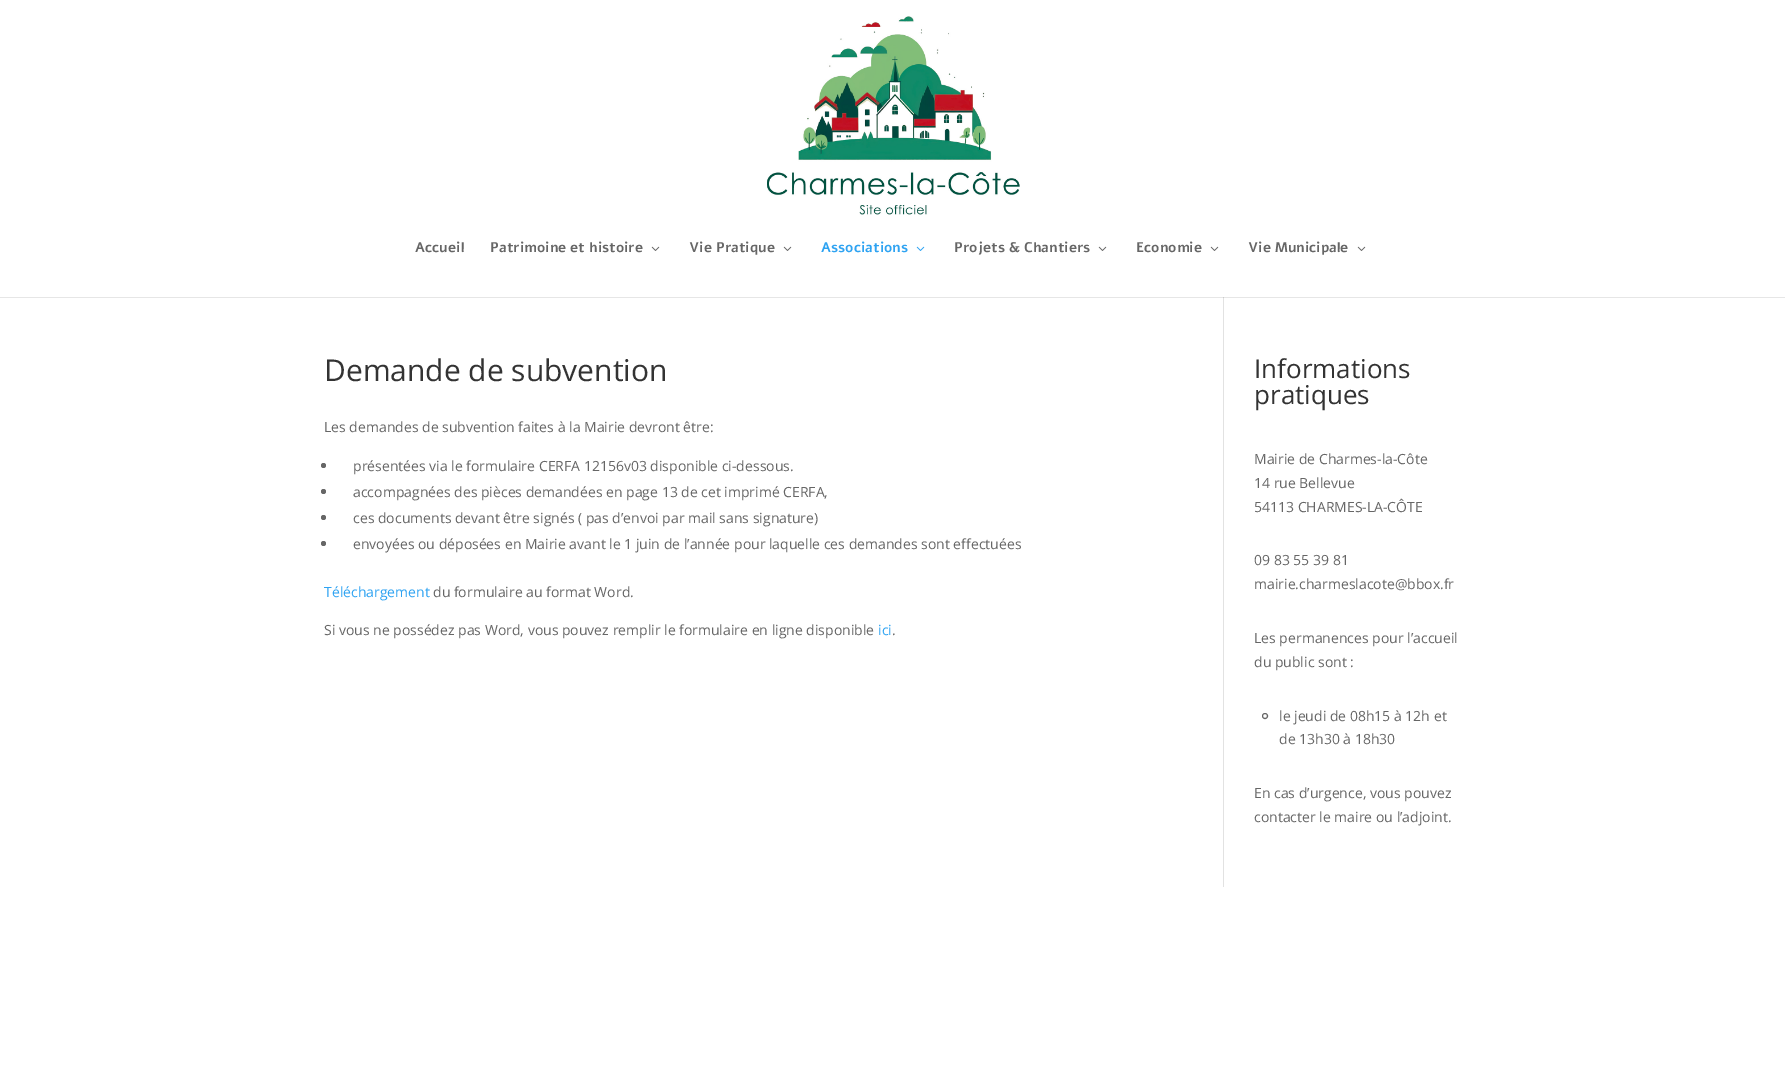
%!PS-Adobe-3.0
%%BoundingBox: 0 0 1785 1071
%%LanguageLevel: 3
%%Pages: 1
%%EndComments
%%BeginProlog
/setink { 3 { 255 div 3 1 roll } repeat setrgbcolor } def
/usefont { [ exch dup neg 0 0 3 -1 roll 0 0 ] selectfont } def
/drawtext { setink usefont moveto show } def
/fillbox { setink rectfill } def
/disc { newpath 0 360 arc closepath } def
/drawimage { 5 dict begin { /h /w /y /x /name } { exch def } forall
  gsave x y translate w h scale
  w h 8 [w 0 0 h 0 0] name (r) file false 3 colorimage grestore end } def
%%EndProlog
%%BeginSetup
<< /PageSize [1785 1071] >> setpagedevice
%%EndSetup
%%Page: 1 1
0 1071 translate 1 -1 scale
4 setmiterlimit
0 0 1785 1071 255 255 255 fillbox
0 297 1785 1 230 230 230 fillbox
(assets/img1.rgb) 767 16 253 199 drawimage
(Accueil) 415 252 /Alef-Bold 14 102 102 102 drawtext
(Patrimoine et histoire) 490 252 /Alef-Bold 14 102 102 102 drawtext
(assets/img2.rgb) 651 246 9 5 drawimage
(Vie Pratique) 689 252 /Alef-Bold 14 102 102 102 drawtext
(assets/img2.rgb) 783 246 9 5 drawimage
(Associations) 821 252 /Alef-Bold 14 46 163 242 drawtext
(assets/img3.rgb) 916 246 9 5 drawimage
(Projets & Chantiers) 954 252 /Alef-Bold 14 102 102 102 drawtext
(assets/img2.rgb) 1098 246 9 5 drawimage
(Economie) 1136 252 /Alef-Bold 14 102 102 102 drawtext
(assets/img2.rgb) 1210 246 9 5 drawimage
(Vie Municipale) 1248 252 /Alef-Bold 14 102 102 102 drawtext
(assets/img2.rgb) 1357 246 9 5 drawimage
1223 297 1 590 226 226 226 fillbox
1223 297 1 1 203 203 203 fillbox
(Demande de subvention) 324 381 /OpenSans-Regular 30 51 51 51 drawtext
(Les demandes de subvention faites à la Mairie devront être:) 324 432 /OpenSans-Regular 14 102 102 102 drawtext
323.5 465.5 2.5 disc fill
(présentées via le formulaire CERFA 12156v03 disponible ci-dessous.) 353 471 /OpenSans-Regular 14 102 102 102 drawtext
323.5 491.5 2.5 disc fill
(accompagnées des pièces demandées en page 13 de cet imprimé CERFA,) 353 497 /OpenSans-Regular 14 102 102 102 drawtext
323.5 517.5 2.5 disc fill
(ces documents devant être signés \( pas d’envoi par mail sans signature\)) 353 523 /OpenSans-Regular 14 102 102 102 drawtext
323.5 543.5 2.5 disc fill
(envoyées ou déposées en Mairie avant le 1 juin de l’année pour laquelle ces demandes sont effectuées) 353 549 /OpenSans-Regular 14 102 102 102 drawtext
(Téléchargement) 324 597 /OpenSans-Regular 14 46 163 242 drawtext
(du formulaire au format Word.) 433 597 /OpenSans-Regular 14 102 102 102 drawtext
(Si vous ne possédez pas Word, vous pouvez remplir le formulaire en ligne disponible) 324 635 /OpenSans-Regular 14 102 102 102 drawtext
(ici) 878 635 /OpenSans-Regular 14 46 163 242 drawtext
(.) 892 635 /OpenSans-Regular 14 102 102 102 drawtext
(Informations) 1254 378 /OpenSans-Regular 26 51 51 51 drawtext
(pratiques) 1254 404 /OpenSans-Regular 26 51 51 51 drawtext
(Mairie de Charmes-la-Côte) 1254 464 /OpenSans-Regular 14 102 102 102 drawtext
(14 rue Bellevue) 1254 488 /OpenSans-Regular 14 102 102 102 drawtext
(54113 CHARMES-LA-CÔTE) 1254 512 /OpenSans-Regular 14 102 102 102 drawtext
(09 83 55 39 81) 1254 565 /OpenSans-Regular 14 102 102 102 drawtext
(mairie.charmeslacote@bbox.fr) 1254 589 /OpenSans-Regular 14 102 102 102 drawtext
(Les permanences pour l’accueil) 1254 643 /OpenSans-Regular 14 102 102 102 drawtext
(du public sont :) 1254 667 /OpenSans-Regular 14 102 102 102 drawtext
1265 716 2.5 disc stroke
(le jeudi de 08h15 à 12h et) 1279 721 /OpenSans-Regular 14 102 102 102 drawtext
(de 13h30 à 18h30) 1279 744 /OpenSans-Regular 14 102 102 102 drawtext
(En cas d’urgence, vous pouvez) 1254 798 /OpenSans-Regular 14 102 102 102 drawtext
(contacter le maire ou l’adjoint.) 1254 822 /OpenSans-Regular 14 102 102 102 drawtext
showpage
%%EOF
